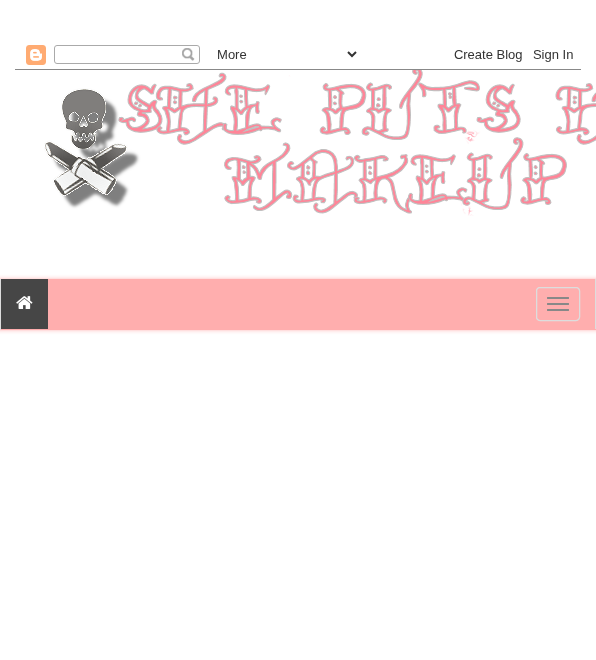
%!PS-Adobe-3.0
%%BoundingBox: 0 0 596 660
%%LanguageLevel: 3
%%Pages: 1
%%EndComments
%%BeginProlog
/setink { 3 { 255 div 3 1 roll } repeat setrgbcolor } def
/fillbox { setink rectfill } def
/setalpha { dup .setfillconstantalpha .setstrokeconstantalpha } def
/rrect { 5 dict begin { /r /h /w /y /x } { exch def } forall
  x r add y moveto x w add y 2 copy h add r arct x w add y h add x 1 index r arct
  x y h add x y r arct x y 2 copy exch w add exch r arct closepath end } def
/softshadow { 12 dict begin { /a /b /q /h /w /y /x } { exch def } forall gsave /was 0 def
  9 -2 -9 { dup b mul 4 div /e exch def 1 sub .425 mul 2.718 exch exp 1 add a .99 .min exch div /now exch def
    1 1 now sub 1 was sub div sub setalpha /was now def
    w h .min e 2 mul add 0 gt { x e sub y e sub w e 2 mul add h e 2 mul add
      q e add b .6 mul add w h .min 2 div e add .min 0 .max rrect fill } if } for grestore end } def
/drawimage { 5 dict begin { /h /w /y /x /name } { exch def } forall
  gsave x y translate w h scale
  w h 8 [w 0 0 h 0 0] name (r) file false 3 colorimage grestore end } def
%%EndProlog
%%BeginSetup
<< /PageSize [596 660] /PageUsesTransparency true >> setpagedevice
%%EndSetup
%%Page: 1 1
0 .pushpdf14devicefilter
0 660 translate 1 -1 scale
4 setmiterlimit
0 0 596 660 255 255 255 fillbox
(assets/img1.rgb) 15 45 566 25 drawimage
(assets/img2.rgb) 44 70 552 146 drawimage
255 174 174 setink
0 279 596 51 0 2 1 softshadow
48 279 547 50 255 174 174 fillbox
595 279 1 51 221 221 221 fillbox
0 329 596 1 255 174 174 fillbox
0 279 1 51 221 221 221 fillbox
1 279 47 50 70 70 70 fillbox
(assets/img3.rgb) 16 296 17 13 drawimage
221 221 221 setink
536.5 287.5 43 33 3.5 rrect stroke
136 136 136 setink
547 297 22 2 1 rrect fill
547 303 22 2 1 rrect fill
547 309 22 2 1 rrect fill
.poppdf14devicefilter showpage
%%EOF
